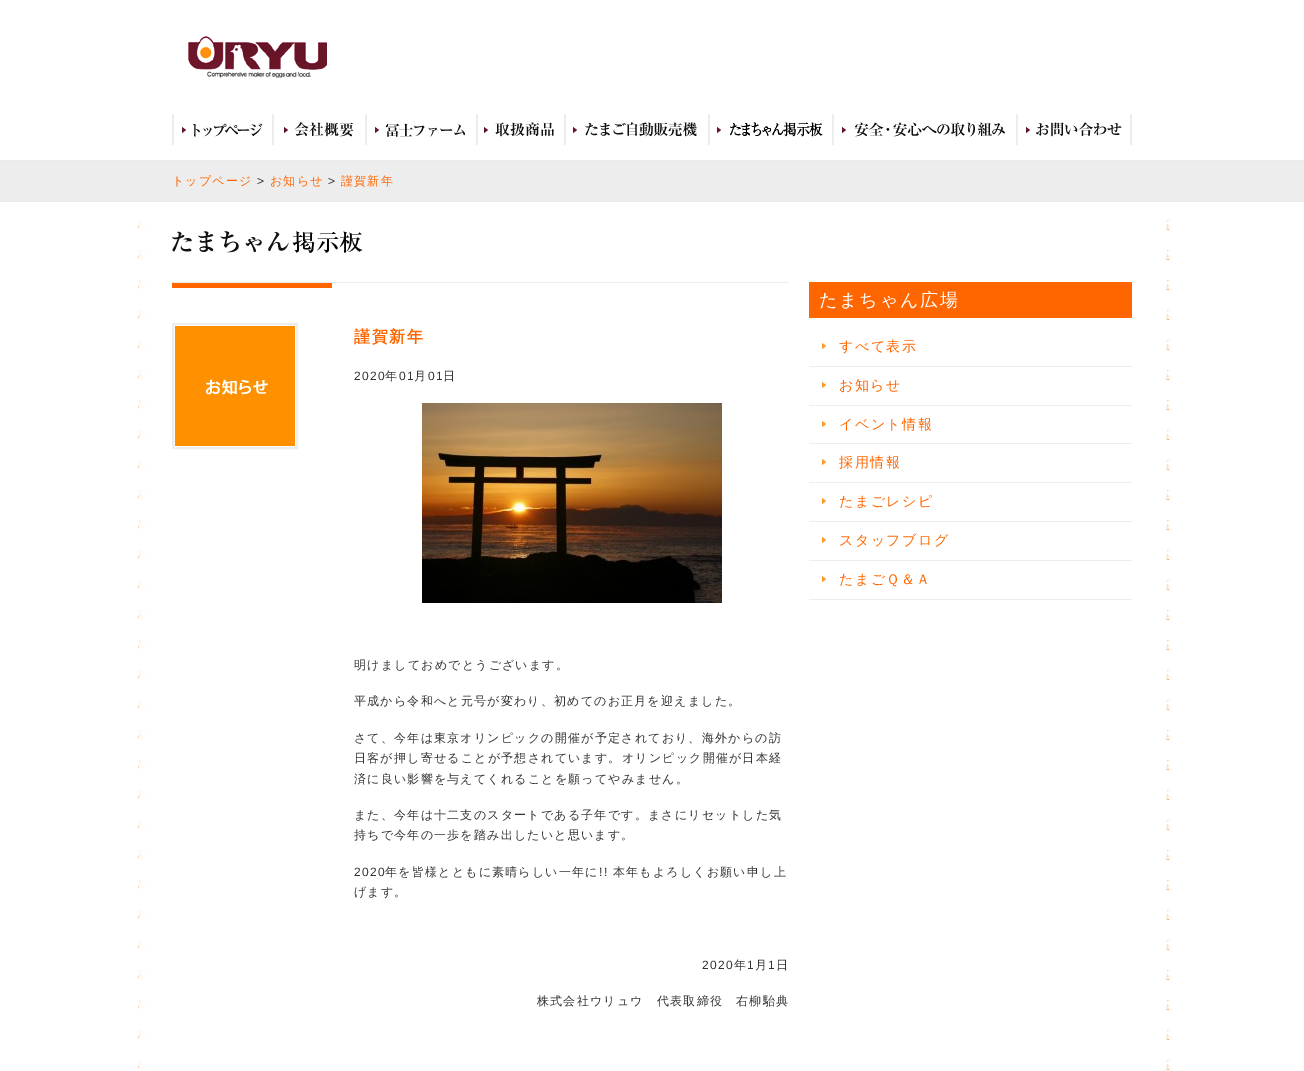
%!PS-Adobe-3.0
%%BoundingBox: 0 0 1304 1071
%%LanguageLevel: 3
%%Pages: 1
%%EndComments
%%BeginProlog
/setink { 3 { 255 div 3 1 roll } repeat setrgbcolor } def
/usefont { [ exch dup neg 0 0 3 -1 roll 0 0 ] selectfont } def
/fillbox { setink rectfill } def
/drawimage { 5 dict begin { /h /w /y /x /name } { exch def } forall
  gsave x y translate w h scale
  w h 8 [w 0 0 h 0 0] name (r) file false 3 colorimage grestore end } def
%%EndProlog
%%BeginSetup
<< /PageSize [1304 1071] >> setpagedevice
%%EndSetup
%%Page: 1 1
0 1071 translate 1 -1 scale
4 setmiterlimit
0 0 1304 1071 255 255 255 fillbox
(assets/img1.rgb) 188 36 139 42 drawimage
(assets/img2.rgb) 172 114 101 31 drawimage
(assets/img3.rgb) 273 114 93 31 drawimage
(assets/img4.rgb) 366 114 111 31 drawimage
(assets/img5.rgb) 477 114 88 31 drawimage
(assets/img6.rgb) 565 114 144 31 drawimage
(assets/img7.rgb) 709 114 124 31 drawimage
(assets/img8.rgb) 833 114 184 31 drawimage
(assets/img9.rgb) 1017 114 115 31 drawimage
0 161 1304 40 237 237 237 fillbox
0 160 1304 1 234 234 234 fillbox
0 201 1304 1 234 234 234 fillbox
/WenQuanYiZenHei-Medium 12 usefont
255 102 0 setink
172 185 moveto 1.2 0 (トップページ) ashow
/LiberationSans-Regular 12 usefont
51 51 51 setink
257 185 moveto 1.2 0 (>) ashow
/WenQuanYiZenHei-Medium 12 usefont
255 102 0 setink
270 185 moveto 1.2 0 (お知らせ) ashow
/LiberationSans-Regular 12 usefont
51 51 51 setink
328 185 moveto 1.2 0 (>) ashow
/WenQuanYiZenHei-Medium 12 usefont
255 102 0 setink
341 185 moveto 1.2 0 (謹賀新年) ashow
(assets/img10.rgb) 137 220 1034 850 drawimage
(assets/img11.rgb) 172 231 191 22 drawimage
172 282 617 1 237 237 237 fillbox
172 283 160 5 255 102 0 fillbox
237 237 237 setink
2 setlinewidth
173 324 124 124 rectstroke
(assets/img12.rgb) 175 326 120 120 drawimage
/WenQuanYiZenHei-Bold 16 usefont
255 102 0 setink
354 342 moveto 1.5 0 (謹賀新年) ashow
/LiberationSans-Regular 12 usefont
51 51 51 setink
354 380 moveto 1.2 0 (2020) ashow
/WenQuanYiZenHei-Medium 12 usefont
385 380 moveto 1.2 0 (年) ashow
/LiberationSans-Regular 12 usefont
399 380 moveto 1.2 0 (01) ashow
/WenQuanYiZenHei-Medium 12 usefont
414 380 moveto 1.2 0 (月) ashow
/LiberationSans-Regular 12 usefont
428 380 moveto 1.2 0 (01) ashow
/WenQuanYiZenHei-Medium 12 usefont
443 380 moveto 1.2 0 (日) ashow
(assets/img13.rgb) 422 403 300 200 drawimage
354 669 moveto 1.2 0 (明けましておめでとうございます。) ashow
354 705 moveto 1.2 0 (平成から令和へと元号が変わり、初めてのお正月を迎えました。) ashow
354 742 moveto 1.2 0 (さて、今年は東京オリンピックの開催が予定されており、海外からの訪) ashow
354 762 moveto 1.2 0 (日客が押し寄せることが予想されています。オリンピック開催が日本経) ashow
354 783 moveto 1.2 0 (済に良い影響を与えてくれることを願ってやみません。) ashow
354 819 moveto 1.2 0 (また、今年は十二支のスタートである子年です。まさにリセットした気) ashow
354 839 moveto 1.2 0 (持ちで今年の一歩を踏み出したいと思います。) ashow
/LiberationSans-Regular 12 usefont
354 876 moveto 1.2 0 (2020) ashow
/WenQuanYiZenHei-Medium 12 usefont
385 876 moveto 1.2 0 (年を皆様とともに素晴らしい一年に) ashow
/LiberationSans-Regular 12 usefont
599 876 moveto 1.2 0 (!!) ashow
/WenQuanYiZenHei-Medium 12 usefont
613 876 moveto 1.2 0 (本年もよろしくお願い申し上) ashow
354 896 moveto 1.2 0 (げます。) ashow
/LiberationSans-Regular 12 usefont
702 969 moveto 1.2 0 (2020) ashow
/WenQuanYiZenHei-Medium 12 usefont
734 969 moveto 1.2 0 (年) ashow
/LiberationSans-Regular 12 usefont
747 969 moveto 1.2 0 (1) ashow
/WenQuanYiZenHei-Medium 12 usefont
755 969 moveto 1.2 0 (月) ashow
/LiberationSans-Regular 12 usefont
768 969 moveto 1.2 0 (1) ashow
/WenQuanYiZenHei-Medium 12 usefont
776 969 moveto 1.2 0 (日) ashow
537 1005 moveto 1.2 0 (株式会社ウリュウ　代表取締役　右柳駘典) ashow
809 282 323 36 255 102 0 fillbox
/WenQuanYiZenHei-Medium 18 usefont
255 255 255 setink
819 306 moveto 1.75 0 (たまちゃん広場) ashow
809 366 323 1 237 237 237 fillbox
(assets/img14.rgb) 822 343 4 6 drawimage
/WenQuanYiZenHei-Medium 14 usefont
255 102 0 setink
839 351 moveto 1.5 0 (すべて表示) ashow
809 405 323 1 237 237 237 fillbox
(assets/img14.rgb) 822 382 4 6 drawimage
255 102 0 setink
839 390 moveto 1.5 0 (お知らせ) ashow
809 443 323 1 237 237 237 fillbox
(assets/img14.rgb) 822 421 4 6 drawimage
255 102 0 setink
839 429 moveto 1.5 0 (イベント情報) ashow
809 482 323 1 237 237 237 fillbox
(assets/img14.rgb) 822 459 4 6 drawimage
255 102 0 setink
839 467 moveto 1.5 0 (採用情報) ashow
809 521 323 1 237 237 237 fillbox
(assets/img14.rgb) 822 498 4 6 drawimage
255 102 0 setink
839 506 moveto 1.5 0 (たまごレシピ) ashow
809 560 323 1 237 237 237 fillbox
(assets/img14.rgb) 822 537 4 6 drawimage
255 102 0 setink
839 545 moveto 1.5 0 (スタッフブログ) ashow
809 599 323 1 237 237 237 fillbox
(assets/img14.rgb) 822 576 4 6 drawimage
255 102 0 setink
839 584 moveto 1.5 0 (たまごＱ＆Ａ) ashow
showpage
%%EOF
